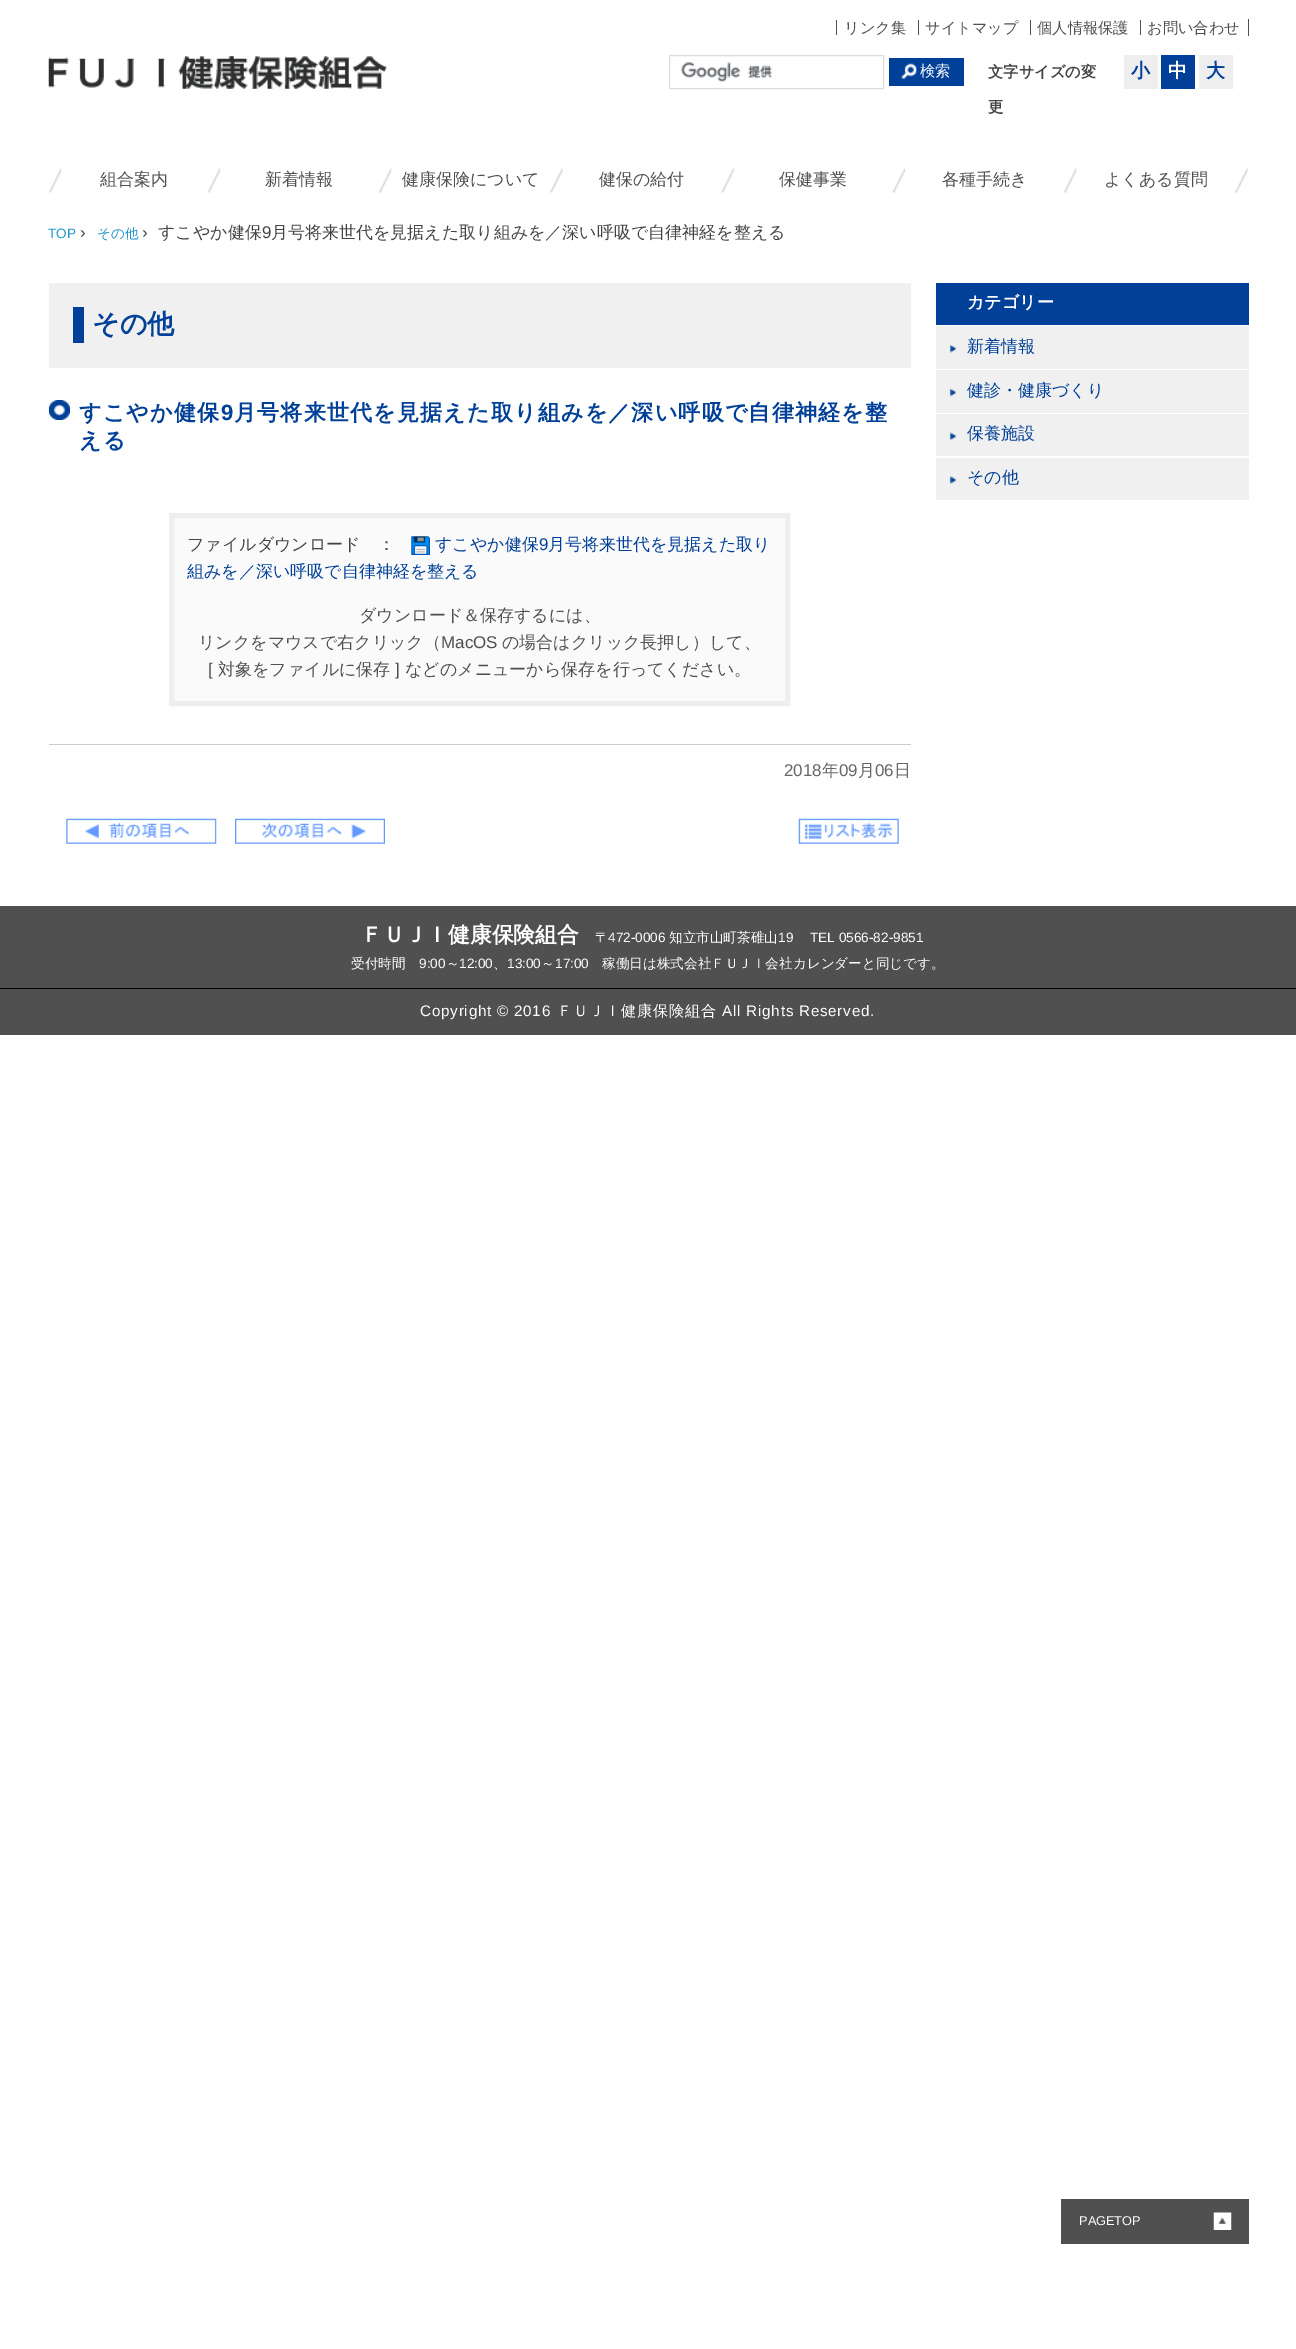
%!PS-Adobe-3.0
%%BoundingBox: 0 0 1296 2349
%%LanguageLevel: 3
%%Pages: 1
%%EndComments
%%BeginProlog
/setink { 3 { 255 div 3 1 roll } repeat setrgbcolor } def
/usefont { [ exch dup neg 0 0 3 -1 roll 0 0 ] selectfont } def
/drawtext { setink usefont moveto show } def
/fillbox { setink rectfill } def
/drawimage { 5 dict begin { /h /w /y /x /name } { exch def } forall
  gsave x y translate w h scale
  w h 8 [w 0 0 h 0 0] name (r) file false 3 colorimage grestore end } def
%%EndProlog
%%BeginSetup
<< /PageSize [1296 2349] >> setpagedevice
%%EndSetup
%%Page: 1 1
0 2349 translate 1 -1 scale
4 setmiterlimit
0 0 1296 2349 255 255 255 fillbox
(assets/img1.rgb) 48 56 339 33 drawimage
1248 19 1 17 80 80 80 fillbox
836 20 1 15 80 80 80 fillbox
(リンク集) 844 33 /WenQuanYiZenHei-Medium 15.25 80 80 80 drawtext
918 20 1 15 80 80 80 fillbox
(サイトマップ) 925 33 /WenQuanYiZenHei-Medium 15.25 80 80 80 drawtext
1030 20 1 15 80 80 80 fillbox
(個人情報保護) 1037 33 /WenQuanYiZenHei-Medium 15.25 80 80 80 drawtext
1140 20 1 15 80 80 80 fillbox
(お問い合わせ) 1147 33 /WenQuanYiZenHei-Medium 15.25 80 80 80 drawtext
(assets/img2.rgb) 681 62 91 20 drawimage
221 221 221 setink
669.5 55.5 214 33 rectstroke
889 58 75 28 0 64 152 fillbox
(assets/img3.rgb) 901 63 16 16 drawimage
(検索) 920 76 /WenQuanYiZenHei-Medium 15.25 255 255 255 drawtext
(文字サイズの変) 988 77 /WenQuanYiZenHei-Bold 15.25 68 68 68 drawtext
(更) 988 112 /WenQuanYiZenHei-Bold 15.25 68 68 68 drawtext
1124 55 34 34 238 238 238 fillbox
(小) 1131 77 /WenQuanYiZenHei-Bold 19 0 64 152 drawtext
1161 55 34 34 0 64 152 fillbox
(中) 1168 77 /WenQuanYiZenHei-Bold 19 255 255 255 drawtext
1199 55 34 34 238 238 238 fillbox
(大) 1206 77 /WenQuanYiZenHei-Bold 19 0 64 152 drawtext
(assets/img4.rgb) 49 167 13 26 drawimage
(assets/img5.rgb) 207 167 13 26 drawimage
(組合案内) 100 185 /WenQuanYiZenHei-Medium 17 80 80 80 drawtext
(assets/img6.rgb) 378 167 14 26 drawimage
(新着情報) 265 185 /WenQuanYiZenHei-Medium 17 80 80 80 drawtext
(assets/img7.rgb) 550 168 13 25 drawimage
(健康保険について) 402 185 /WenQuanYiZenHei-Medium 17 80 80 80 drawtext
(assets/img8.rgb) 721 167 13 26 drawimage
(健保の給付) 599 185 /WenQuanYiZenHei-Medium 17 80 80 80 drawtext
(assets/img5.rgb) 892 167 13 26 drawimage
(保健事業) 779 185 /WenQuanYiZenHei-Medium 17 80 80 80 drawtext
(assets/img6.rgb) 1063 167 14 26 drawimage
(各種手続き) 942 185 /WenQuanYiZenHei-Medium 17 80 80 80 drawtext
(assets/img9.rgb) 1235 168 13 25 drawimage
(よくある質問) 1104 185 /WenQuanYiZenHei-Medium 17 80 80 80 drawtext
(TOP) 48 238 /LiberationSans-Regular 13.6 35 151 207 drawtext
(›) 80 238 /LiberationSans-Regular 17 68 68 68 drawtext
(その他) 97 238 /WenQuanYiZenHei-Medium 13.6 35 151 207 drawtext
(›) 142 238 /LiberationSans-Regular 17 68 68 68 drawtext
(すこやか健保) 158 238 /WenQuanYiZenHei-Medium 17 68 68 68 drawtext
(9) 262 238 /LiberationSans-Regular 17 68 68 68 drawtext
(月号将来世代を見据えた取り組みを／深い呼吸で自律神経を整える) 271 238 /WenQuanYiZenHei-Medium 17 68 68 68 drawtext
49 283 862 85 240 240 240 fillbox
73 307 11 36 0 64 152 fillbox
(その他) 92 333 /WenQuanYiZenHei-Bold 27 0 64 152 drawtext
(assets/img10.rgb) 48 400 22 20 drawimage
/WenQuanYiZenHei-Bold 22.1 usefont
79 420 moveto 1.1 0 (すこやか健保) ashow
/LiberationSans-Bold 22.1 usefont
221 420 moveto 1.1 0 (9) ashow
/WenQuanYiZenHei-Bold 22.1 usefont
234 420 moveto 1.1 0 (月号将来世代を見据えた取り組みを／深い呼吸で自律神経を整) ashow
79 448 moveto 1.1 0 (える) ashow
250 250 250 setink
171.5 515.5 moveto 787.5 515.5 lineto 787.5 703.5 lineto 171.5 703.5 lineto closepath gsave fill grestore
238 238 238 setink
5 setlinewidth
stroke
(ファイルダウンロード　：) 187 550 /WenQuanYiZenHei-Medium 17 68 68 68 drawtext
(assets/img11.rgb) 411 536 19 19 drawimage
(すこやか健保) 435 550 /WenQuanYiZenHei-Medium 17 0 64 152 drawtext
(9) 539 550 /LiberationSans-Regular 17 0 64 152 drawtext
(月号将来世代を見据えた取り) 548 550 /WenQuanYiZenHei-Medium 17 0 64 152 drawtext
(組みを／深い呼吸で自律神経を整える) 187 577 /WenQuanYiZenHei-Medium 17 0 64 152 drawtext
(ダウンロード＆保存するには、) 359 621 /WenQuanYiZenHei-Medium 17 80 80 80 drawtext
(リンクをマウスで右クリック（) 198 648 /WenQuanYiZenHei-Medium 17 80 80 80 drawtext
(MacOS) 441 648 /LiberationSans-Regular 17 80 80 80 drawtext
(の場合はクリック長押し）して、) 502 648 /WenQuanYiZenHei-Medium 17 80 80 80 drawtext
([) 208 675 /LiberationSans-Regular 17 80 80 80 drawtext
(対象をファイルに保存) 218 675 /WenQuanYiZenHei-Medium 17 80 80 80 drawtext
(]) 395 675 /LiberationSans-Regular 17 80 80 80 drawtext
(などのメニューから保存を行ってください。) 405 675 /WenQuanYiZenHei-Medium 17 80 80 80 drawtext
49 744 862 1 204 204 204 fillbox
(2018) 784 776 /LiberationSans-Regular 17 102 102 102 drawtext
(年) 822 776 /WenQuanYiZenHei-Medium 17 102 102 102 drawtext
(09) 839 776 /LiberationSans-Regular 17 102 102 102 drawtext
(月) 858 776 /WenQuanYiZenHei-Medium 17 102 102 102 drawtext
(06) 875 776 /LiberationSans-Regular 17 102 102 102 drawtext
(日) 894 776 /WenQuanYiZenHei-Medium 17 102 102 102 drawtext
(assets/img12.rgb) 66 818 151 26 drawimage
(assets/img13.rgb) 235 818 150 26 drawimage
(assets/img14.rgb) 798 818 101 26 drawimage
936 283 313 42 0 64 152 fillbox
(カテゴリー) 967 308 /WenQuanYiZenHei-Bold 17 255 255 255 drawtext
936 326 313 43 240 240 240 fillbox
(assets/img15.rgb) 949 345 8 8 drawimage
(新着情報) 967 352 /WenQuanYiZenHei-Medium 17 0 64 152 drawtext
936 370 313 43 240 240 240 fillbox
(assets/img16.rgb) 949 388 8 9 drawimage
(健診・健康づくり) 967 396 /WenQuanYiZenHei-Medium 17 0 64 152 drawtext
936 414 313 42 240 240 240 fillbox
(assets/img17.rgb) 949 432 8 8 drawimage
(保養施設) 967 439 /WenQuanYiZenHei-Medium 17 0 64 152 drawtext
936 458 313 42 240 240 240 fillbox
(assets/img18.rgb) 949 476 8 8 drawimage
(その他) 967 483 /WenQuanYiZenHei-Medium 17 0 64 152 drawtext
0 906 1296 82 80 80 80 fillbox
0 988 1296 1 0 0 0 fillbox
(ＦＵＪＩ健康保険組合) 361 942 /WenQuanYiZenHei-Bold 21.75 255 255 255 drawtext
(〒) 595 942 /WenQuanYiZenHei-Medium 13.6 255 255 255 drawtext
(472-0006) 608 942 /LiberationSans-Regular 13.6 255 255 255 drawtext
(知立市山町茶碓山) 669 942 /WenQuanYiZenHei-Medium 13.6 255 255 255 drawtext
(19) 778 942 /LiberationSans-Regular 13.6 255 255 255 drawtext
(TEL 0566-82-9851) 810 942 /LiberationSans-Regular 13.6 255 255 255 drawtext
(受付時間) 351 968 /WenQuanYiZenHei-Medium 13.6 255 255 255 drawtext
(9:00) 419 968 /LiberationSans-Regular 13.6 255 255 255 drawtext
(～) 446 968 /WenQuanYiZenHei-Medium 13.6 255 255 255 drawtext
(12:00) 459 968 /LiberationSans-Regular 13.6 255 255 255 drawtext
(13:00) 507 968 /LiberationSans-Regular 13.6 255 255 255 drawtext
(～) 541 968 /WenQuanYiZenHei-Medium 13.6 255 255 255 drawtext
(17:00) 555 968 /LiberationSans-Regular 13.6 255 255 255 drawtext
(稼働日は株式会社ＦＵＪＩ会社カレンダーと同じです。) 602 968 /WenQuanYiZenHei-Medium 13.6 255 255 255 drawtext
(、) 493 968 /WenQuanYiZenHei-Medium 13.6 255 255 255 drawtext
0 989 1296 46 80 80 80 fillbox
/LiberationSans-Regular 15.25 usefont
255 255 255 setink
420 1016 moveto 0.75 0 (Copyright © 2016) ashow
/WenQuanYiZenHei-Medium 15.25 usefont
557 1016 moveto 0.75 0 (ＦＵＪＩ健康保険組合) ashow
/LiberationSans-Regular 15.25 usefont
722 1016 moveto 0.75 0 (All Rights Reserved.) ashow
1061 2199 188 45 80 80 80 fillbox
(assets/img19.rgb) 1213 2212 19 18 drawimage
(PAGETOP) 1079 2225 /LiberationSans-Regular 12.75 255 255 255 drawtext
showpage
%%EOF
